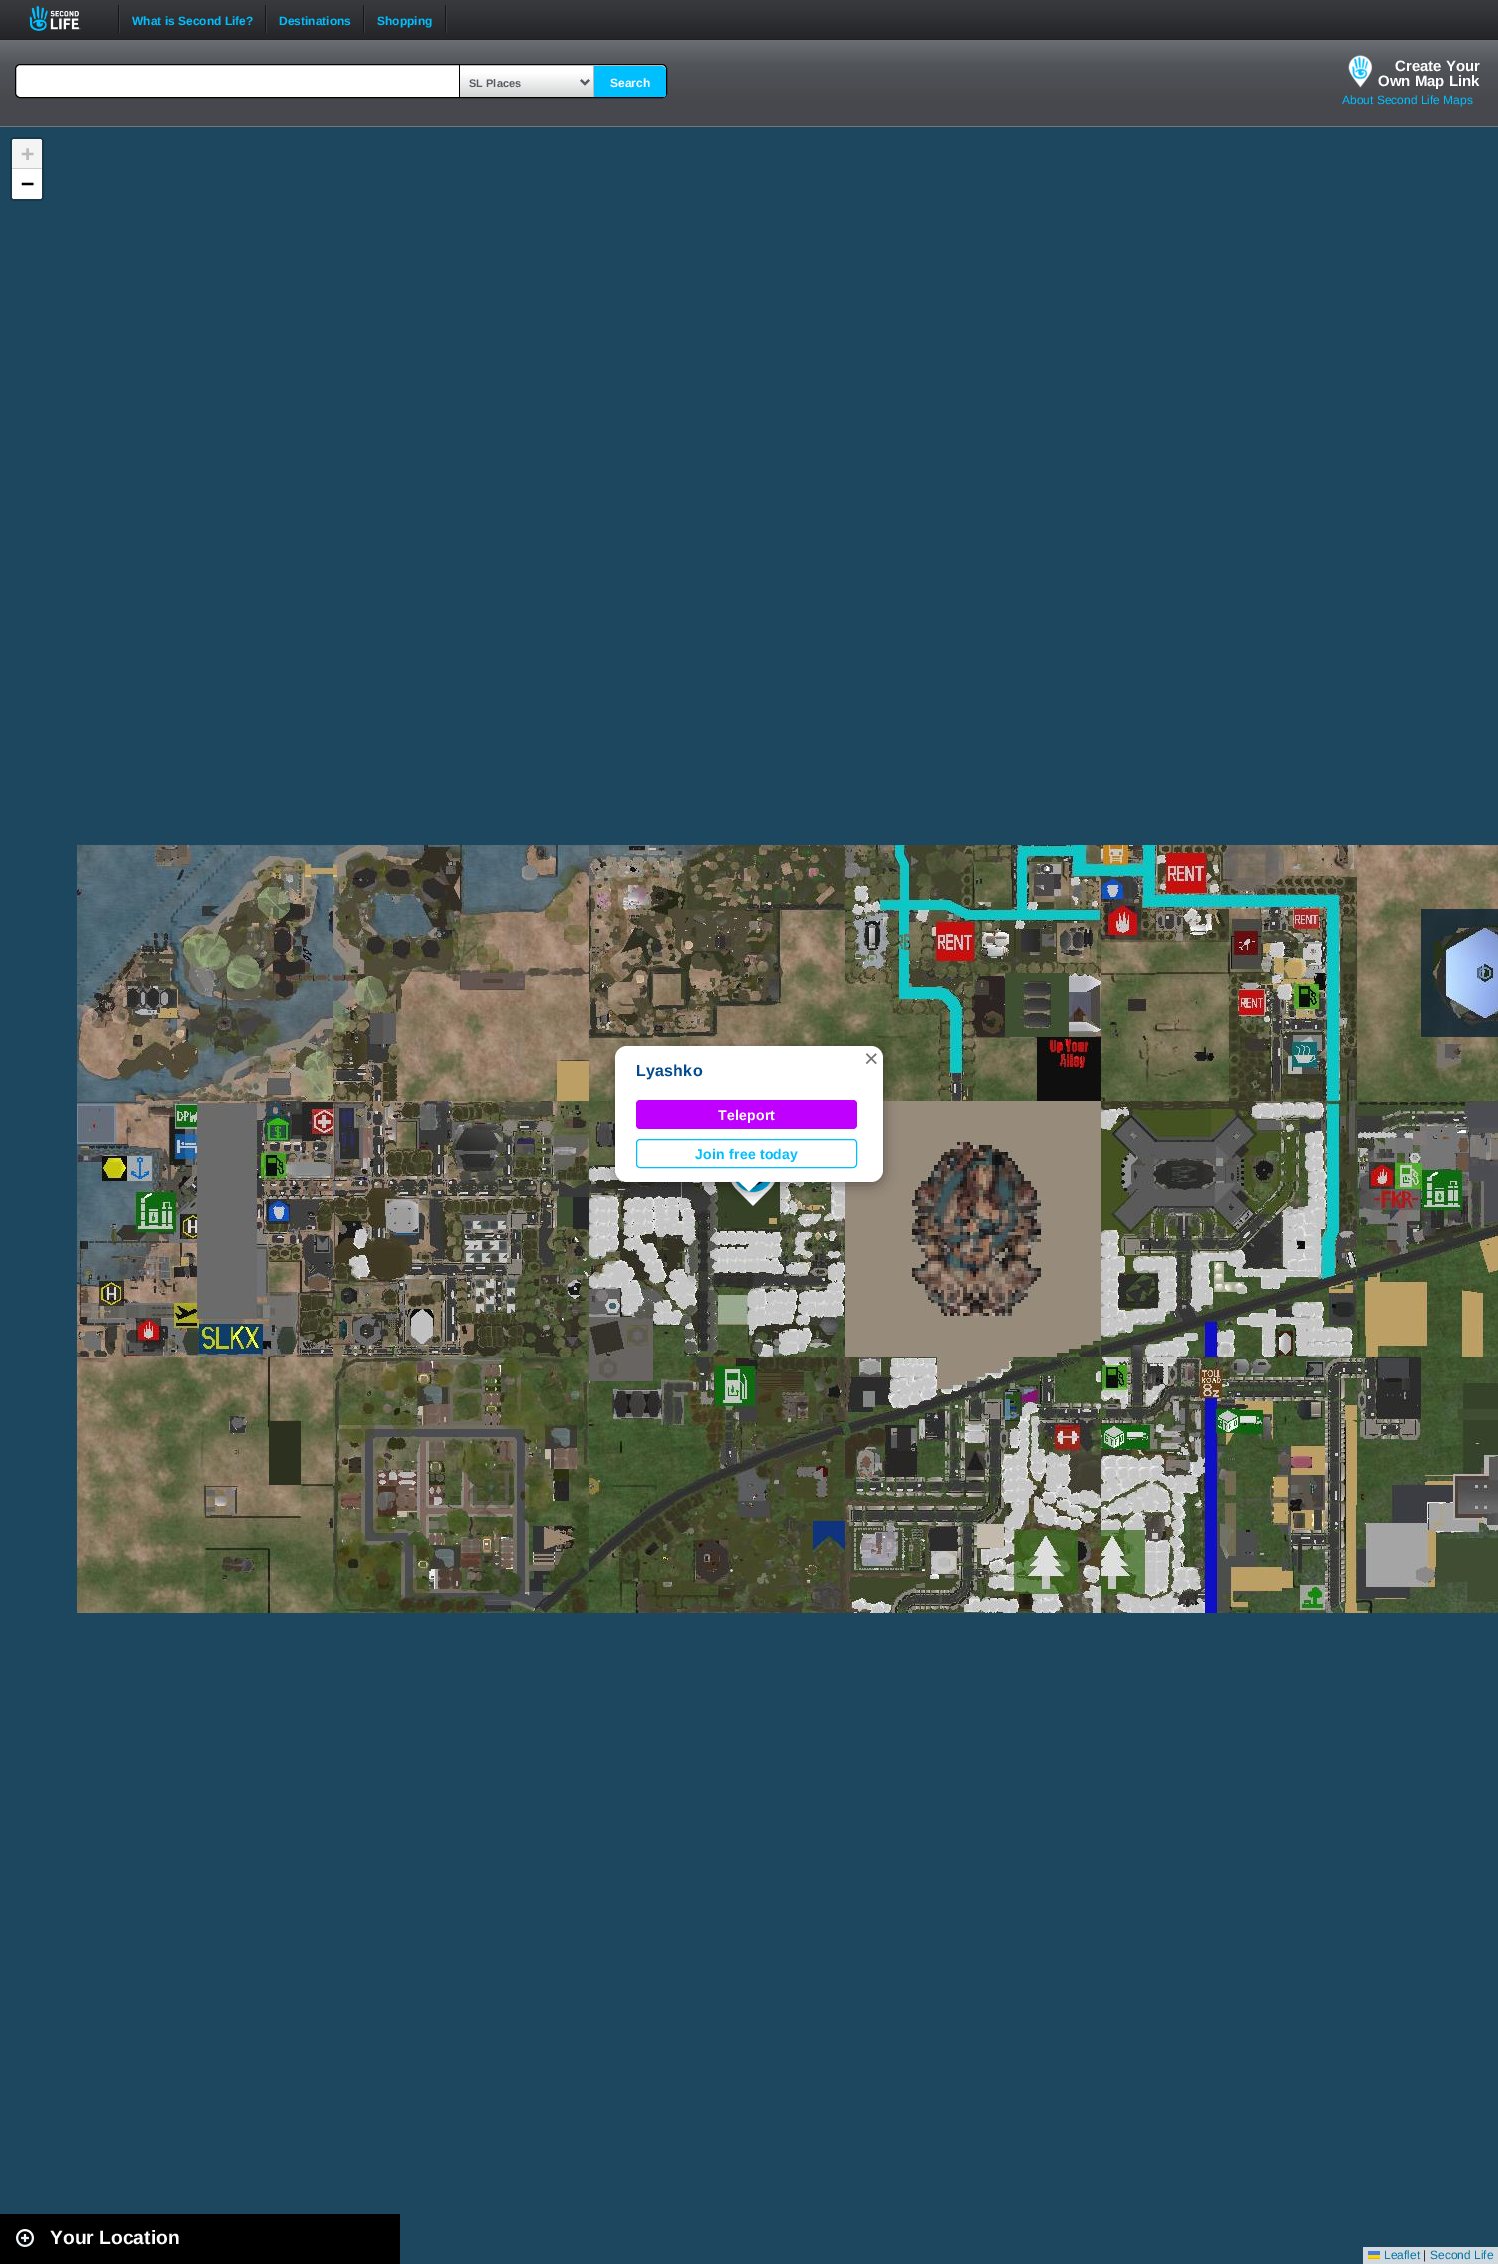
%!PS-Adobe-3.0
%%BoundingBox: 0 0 1498 2264
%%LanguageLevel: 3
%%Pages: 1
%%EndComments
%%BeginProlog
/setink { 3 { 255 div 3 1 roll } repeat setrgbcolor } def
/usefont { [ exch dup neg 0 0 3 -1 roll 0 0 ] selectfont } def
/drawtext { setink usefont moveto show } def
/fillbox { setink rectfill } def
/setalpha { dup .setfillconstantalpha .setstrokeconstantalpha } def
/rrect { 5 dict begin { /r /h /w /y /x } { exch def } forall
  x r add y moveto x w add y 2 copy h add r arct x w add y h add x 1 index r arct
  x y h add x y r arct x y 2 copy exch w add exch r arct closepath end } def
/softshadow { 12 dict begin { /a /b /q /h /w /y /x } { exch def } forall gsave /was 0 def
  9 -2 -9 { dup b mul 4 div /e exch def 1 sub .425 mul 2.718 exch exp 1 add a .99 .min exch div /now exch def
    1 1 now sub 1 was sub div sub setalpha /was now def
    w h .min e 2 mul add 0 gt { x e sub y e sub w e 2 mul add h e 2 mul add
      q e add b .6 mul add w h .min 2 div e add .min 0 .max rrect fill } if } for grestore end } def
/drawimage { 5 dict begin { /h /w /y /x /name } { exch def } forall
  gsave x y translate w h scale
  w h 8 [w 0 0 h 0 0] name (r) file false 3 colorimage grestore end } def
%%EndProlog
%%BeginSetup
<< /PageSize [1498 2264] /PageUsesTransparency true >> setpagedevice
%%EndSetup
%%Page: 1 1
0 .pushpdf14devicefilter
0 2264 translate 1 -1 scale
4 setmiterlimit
0 0 1498 2264 29 71 95 fillbox
(assets/img1.rgb) 0 0 1498 40 drawimage
(assets/img2.rgb) 29 6 52 25 drawimage
119 5 1 28 58 62 66 fillbox
118 5 1 28 22 22 22 fillbox
(What is Second Life?) 132 25 /LiberationSans-Bold 12 0 191 255 drawtext
266 5 1 28 58 62 66 fillbox
265 5 1 28 22 22 22 fillbox
(Destinations) 279 25 /LiberationSans-Bold 12 0 191 255 drawtext
364 5 1 28 58 62 66 fillbox
363 5 1 28 22 22 22 fillbox
(Shopping) 377 25 /LiberationSans-Bold 12 0 191 255 drawtext
446 5 1 28 58 62 66 fillbox
445 5 1 28 22 22 22 fillbox
gsave 0 40 moveto 1498 40 lineto 1498 126 lineto 0 126 lineto closepath clip newpath
<< /ShadingType 2 /ColorSpace /DeviceRGB /Coords [0 126 0 40] /Extend [true true] /Function << /FunctionType 3 /Domain [0 1] /Functions [<< /FunctionType 2 /Domain [0 1] /C0 [0.278 0.282 0.302] /C1 [0.278 0.282 0.302] /N 1 >> << /FunctionType 2 /Domain [0 1] /C0 [0.278 0.282 0.302] /C1 [0.318 0.333 0.349] /N 1 >> << /FunctionType 2 /Domain [0 1] /C0 [0.318 0.333 0.349] /C1 [0.42 0.431 0.451] /N 1 >>] /Bounds [0.29 0.71] /Encode [0 1 0 1 0 1] >> >> shfill grestore
0 126 1498 1 114 119 126 fillbox
255 255 255 setink
15.5 64.5 651 33 4.5 rrect gsave fill grestore
0 0 0 setink
stroke
(assets/img3.rgb) 460 66 133 31 drawimage
459 65 135 1 187 187 187 fillbox
593 65 1 32 187 187 187 fillbox
459 65 1 32 0 0 0 fillbox
89 92 98 setink
2 setlinewidth
581 80 moveto 585 84 lineto 589 80 lineto stroke
(SL Places) 469 87 /LiberationSans-Bold 11 89 92 98 drawtext
gsave
16 65 650 32 4 rrect clip newpath
0 191 255 setink
594 66 moveto 661 66 lineto 664 66 666 68 666 71 curveto 666 95 lineto 666 98 664 100 661 100 curveto 594 100 lineto closepath fill
grestore
(Search) 610 87 /LiberationSans-Bold 12 255 255 255 drawtext
(assets/img4.rgb) 1348 55 25 33 drawimage
(Create Your) 1395 71 /LiberationSans-Bold 15 255 255 255 drawtext
(Own Map Link) 1378 86 /LiberationSans-Bold 15 255 255 255 drawtext
(About Second Life Maps) 1342 104 /LiberationSans-Regular 12 0 191 255 drawtext
23 57 76 setink
11 138 32 62 3 rrect stroke
244 244 244 setink
14 139 moveto 40 139 lineto 41 139 42 140 42 141 curveto 42 169 lineto 12 169 lineto 12 141 lineto 12 140 13 139 14 139 curveto closepath fill
12 168 30 1 204 204 204 fillbox
(+) 21 161 /DejaVuSansMono-Bold 22 187 187 187 drawtext
255 255 255 setink
12 169 moveto 42 169 lineto 42 197 lineto 42 198 41 199 40 199 curveto 14 199 lineto 13 199 12 198 12 197 curveto closepath fill
(−) 21 191 /DejaVuSansMono-Bold 22 0 0 0 drawtext
1363 2247 135 17 210 218 223 fillbox
(Leaflet) 1384 2259 /LiberationSans-Regular 12 0 120 168 drawtext
1368 2251 12 4 76 123 225 fillbox
1368 2255 12 3 255 213 0 fillbox
1368 2258 12 1 224 188 0 fillbox
(|) 1423 2259 /LiberationSans-Regular 12 51 51 51 drawtext
(Second Life) 1430 2259 /LiberationSans-Regular 12 0 120 168 drawtext
(assets/img5.rgb) 77 845 256 256 drawimage
(assets/img6.rgb) 333 845 256 256 drawimage
(assets/img7.rgb) 589 845 256 256 drawimage
(assets/img8.rgb) 845 845 256 256 drawimage
(assets/img9.rgb) 1101 845 256 256 drawimage
(assets/img10.rgb) 1357 845 141 256 drawimage
(assets/img11.rgb) 77 1101 256 256 drawimage
(assets/img12.rgb) 333 1101 256 256 drawimage
(assets/img13.rgb) 589 1101 256 256 drawimage
(assets/img14.rgb) 845 1101 256 256 drawimage
(assets/img15.rgb) 1101 1101 256 256 drawimage
(assets/img16.rgb) 1357 1101 141 256 drawimage
(assets/img17.rgb) 77 1357 256 256 drawimage
(assets/img18.rgb) 333 1357 256 256 drawimage
(assets/img19.rgb) 589 1357 256 256 drawimage
(assets/img20.rgb) 845 1357 256 256 drawimage
(assets/img21.rgb) 1101 1357 256 256 drawimage
(assets/img22.rgb) 1357 1357 141 256 drawimage
(assets/img23.rgb) 731 1182 44 24 drawimage
0 0 0 setink
615 1049 268 136 12 7 0.4 softshadow
255 255 255 setink
615 1046 268 136 12 rrect fill
(×) 864 1067 /LiberationSans-Regular 25 117 117 117 drawtext
/LiberationSans-Bold 16 usefont
1 74 142 setink
636 1076 moveto 0.25 0 (Lyashko) ashow
191 0 255 setink
636 1100 221 29 4 rrect fill
/LiberationSans-Bold 14 usefont
255 255 255 setink
718 1120 moveto 0.25 0 (Teleport) ashow
0 191 255 setink
1 setlinewidth
636.5 1139.5 220 28 3.5 rrect stroke
695 1159 moveto 0.25 0 (Join free today) ashow
gsave
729 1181 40 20 rectclip
0 0 0 setink
741 1174 17 17 0 7 0.4 softshadow
grestore
gsave
729 1181 40 20 rectclip
255 255 255 setink
749 1167.5 moveto 761 1179.5 lineto 749 1191.5 lineto 737 1179.5 lineto closepath fill
grestore
0 2214 400 50 0 0 0 fillbox
(assets/img24.rgb) 16 2229 18 18 drawimage
(Your Location) 50 2244 /LiberationSans-Bold 19.25 255 255 255 drawtext
.poppdf14devicefilter showpage
%%EOF
